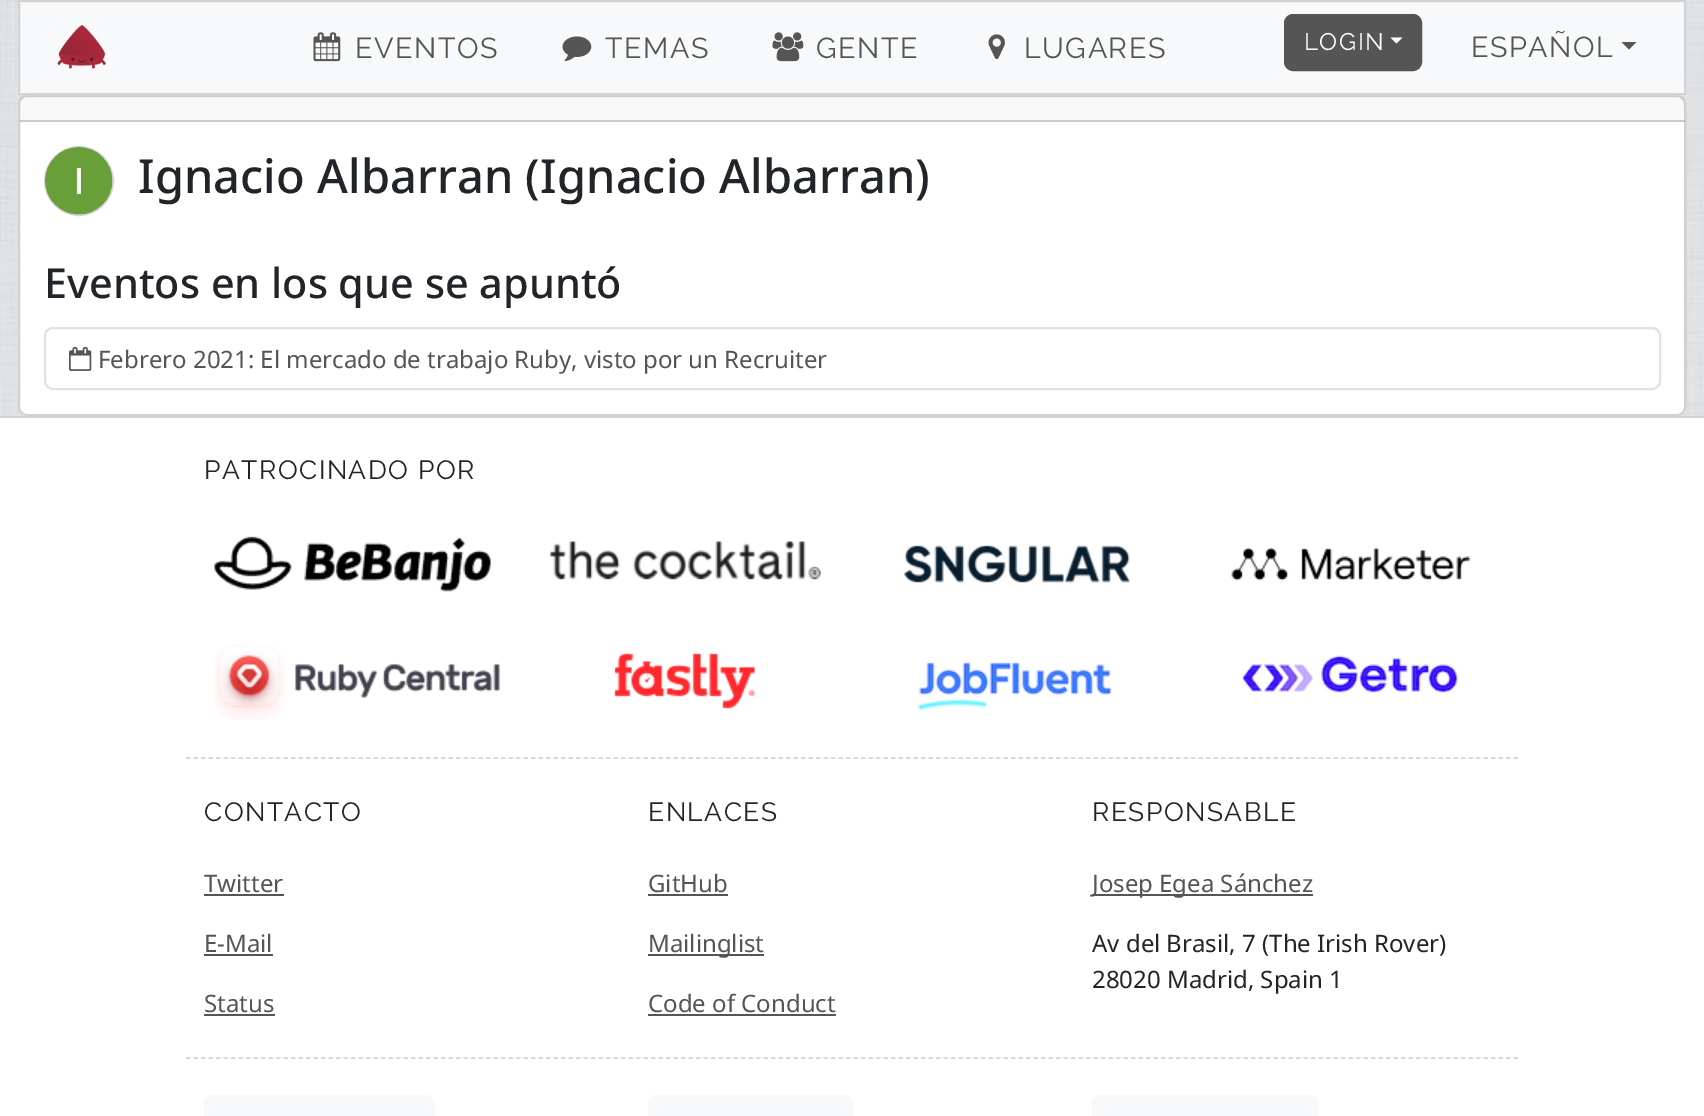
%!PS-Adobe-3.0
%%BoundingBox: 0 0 1704 1116
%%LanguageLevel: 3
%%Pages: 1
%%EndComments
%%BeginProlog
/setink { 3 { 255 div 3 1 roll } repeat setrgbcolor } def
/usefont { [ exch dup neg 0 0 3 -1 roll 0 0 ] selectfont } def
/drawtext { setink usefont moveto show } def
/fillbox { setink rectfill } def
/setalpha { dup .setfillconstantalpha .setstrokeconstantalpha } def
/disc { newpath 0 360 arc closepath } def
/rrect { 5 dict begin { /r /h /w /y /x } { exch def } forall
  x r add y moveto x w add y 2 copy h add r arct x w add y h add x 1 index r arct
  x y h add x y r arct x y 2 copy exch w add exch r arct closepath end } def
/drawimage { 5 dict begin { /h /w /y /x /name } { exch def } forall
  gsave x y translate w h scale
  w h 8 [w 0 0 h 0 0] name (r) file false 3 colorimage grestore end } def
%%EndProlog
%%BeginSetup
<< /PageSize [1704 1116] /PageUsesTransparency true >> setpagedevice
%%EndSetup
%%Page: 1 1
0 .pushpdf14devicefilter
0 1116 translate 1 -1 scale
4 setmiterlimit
0 0 1704 1116 255 255 255 fillbox
(assets/img1.rgb) 0 0 1704 416 drawimage
248 249 250 setink
19 1 moveto 1685 1 lineto 1685 94 lineto 19 94 lineto closepath gsave fill grestore
211 211 211 setink
2 setlinewidth
stroke
(assets/img2.rgb) 57 25 49 44 drawimage
(assets/img3.rgb) 313 32 28 30 drawimage
/Raleway-Thin 28.75 usefont
85 85 85 setink
355 58 moveto 1.5 0 (EVENTOS) ashow
(assets/img4.rgb) 562 36 30 26 drawimage
605 58 moveto 1.5 0 (TEMAS) ashow
(assets/img5.rgb) 772 32 32 30 drawimage
816 58 moveto 1.5 0 (GENTE) ashow
(assets/img6.rgb) 988 34 17 25 drawimage
1024 58 moveto 1.5 0 (LUGARES) ashow
1285 15 136 55 8 rrect gsave fill grestore
stroke
/Raleway-Thin 24 usefont
255 255 255 setink
1304 50 moveto 1.5 0 (LOGIN) ashow
1390.5 37.5 moveto 1402.5 37.5 lineto 1396.5 43.5 lineto closepath fill
/Raleway-Thin 28.75 usefont
85 85 85 setink
1471 57 moveto 1.5 0 (ESPAÑOL) ashow
87 87 88 setink
1621.5 42 moveto 1636.5 42 lineto 1629 49.5 lineto closepath fill
255 255 255 setink
18 95 1668 321 9 rrect fill
0.18 setalpha
0 0 0 setink
19 96 1666 319 8 rrect stroke
0.03 setalpha
20 96 1665 26 33 37 41 fillbox
0.18 setalpha
20 120 1665 2 0 0 0 fillbox
1 setalpha
211 211 211 setink
79 181 34 disc stroke
(assets/img7.rgb) 45 147 68 68 drawimage
(Ignacio Albarran \(Ignacio Albarran\)) 138 193 /NotoSans-Medium 47.1 33 37 41 drawtext
(Eventos en los que se apuntó) 44 298 /NotoSans-Medium 41.4 33 37 41 drawtext
222 226 230 setink
45 328 1615 61 8 rrect stroke
(assets/img8.rgb) 69 346 23 25 drawimage
(Febrero 2021: El mercado de trabajo Ruby, visto por un Recruiter) 98 368 /NotoSans-Regular 24 85 85 85 drawtext
0 416 1704 2 211 211 211 fillbox
1.5 setlinewidth
[4.5 3] 0 setdash
186 758 moveto 1518 758 lineto stroke
/Raleway-Thin 26.4 usefont
33 37 41 setink
204 479 moveto 1.5 0 (PATROCINADO POR) ashow
(assets/img9.rgb) 214 536 277 56 drawimage
(assets/img10.rgb) 550 541 271 39 drawimage
(assets/img11.rgb) 904 545 226 38 drawimage
(assets/img12.rgb) 1231 547 240 34 drawimage
(assets/img13.rgb) 214 644 286 76 drawimage
(assets/img14.rgb) 614 653 141 56 drawimage
(assets/img15.rgb) 917 662 195 48 drawimage
(assets/img16.rgb) 1242 655 217 39 drawimage
211 211 211 setink
186 1058 moveto 1518 1058 lineto stroke
33 37 41 setink
204 821 moveto 1.5 0 (CONTACTO) ashow
(Twitter) 204 892 /NotoSans-Regular 24 85 85 85 drawtext
204 894 80 2 85 85 85 fillbox
(E-Mail) 204 952 /NotoSans-Regular 24 85 85 85 drawtext
204 954 69 2 85 85 85 fillbox
(Status) 204 1012 /NotoSans-Regular 24 85 85 85 drawtext
204 1014 71 2 85 85 85 fillbox
/Raleway-Thin 26.4 usefont
33 37 41 setink
648 821 moveto 1.5 0 (ENLACES) ashow
(GitHub) 648 892 /NotoSans-Regular 24 85 85 85 drawtext
648 894 80 2 85 85 85 fillbox
648 954 116 2 85 85 85 fillbox
(Mailinglist) 648 952 /NotoSans-Regular 24 85 85 85 drawtext
(Code of Conduct) 648 1012 /NotoSans-Regular 24 85 85 85 drawtext
648 1014 188 2 85 85 85 fillbox
/Raleway-Thin 26.4 usefont
33 37 41 setink
1092 821 moveto 1.5 0 (RESPONSABLE) ashow
1092 894 221 2 85 85 85 fillbox
(Josep Egea Sánchez) 1092 892 /NotoSans-Regular 24 85 85 85 drawtext
(Av del Brasil, 7 \(The Irish Rover\)) 1092 952 /NotoSans-Regular 24 33 37 41 drawtext
(28020 Madrid, Spain 1) 1092 988 /NotoSans-Regular 24 33 37 41 drawtext
248 249 250 setink
204 1095 231 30 9 rrect fill
648 1095 206 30 9 rrect fill
1092 1095 227 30 9 rrect fill
.poppdf14devicefilter showpage
%%EOF
